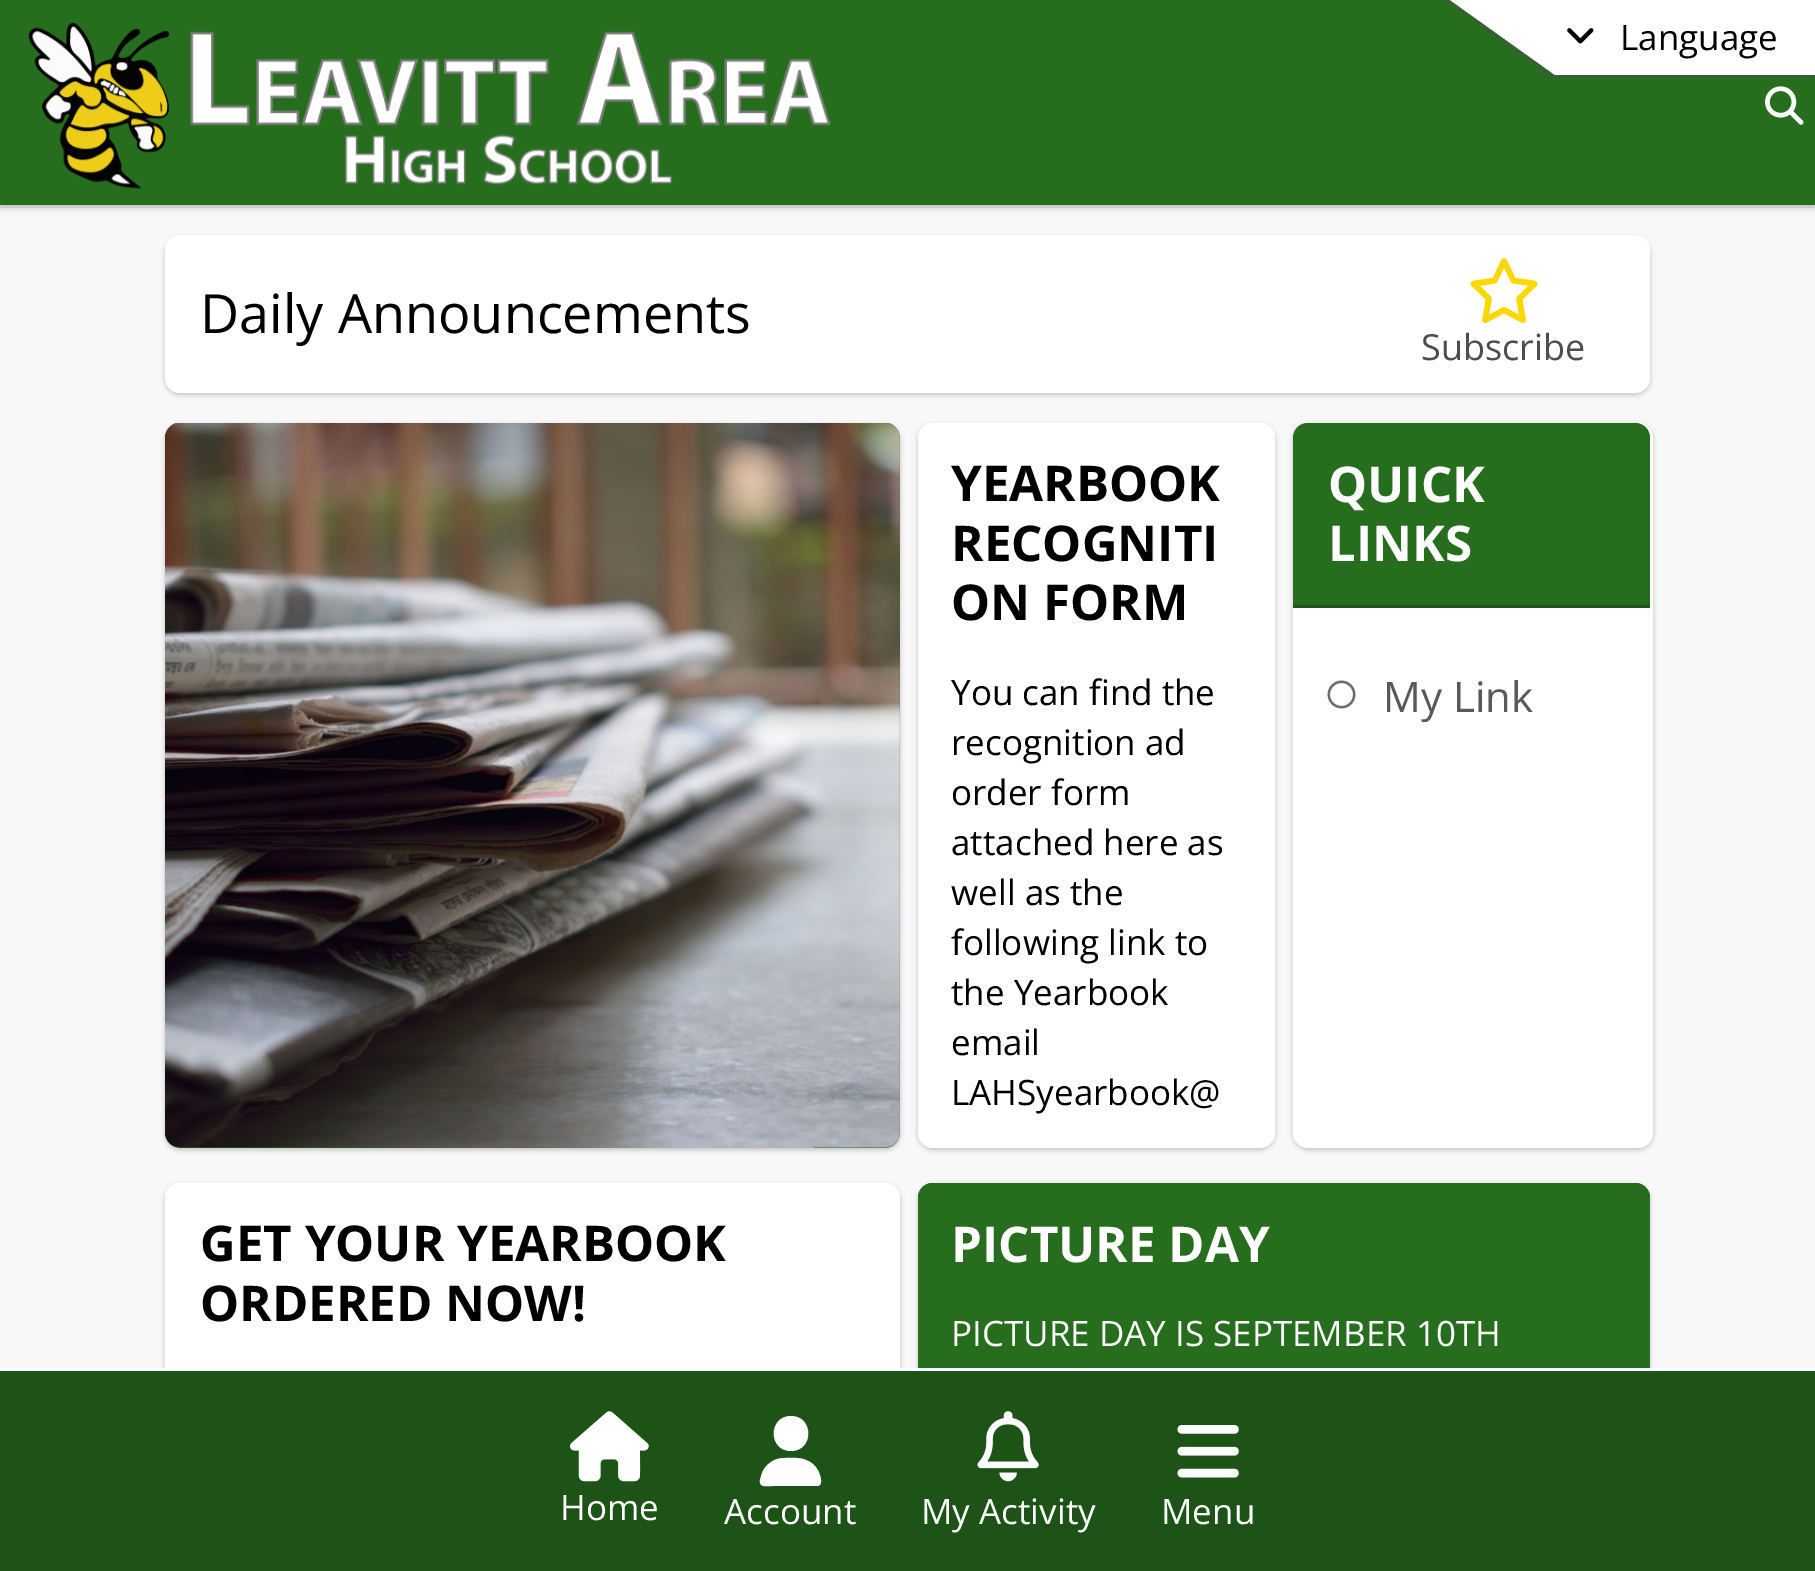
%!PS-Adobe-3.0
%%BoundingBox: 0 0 1815 1571
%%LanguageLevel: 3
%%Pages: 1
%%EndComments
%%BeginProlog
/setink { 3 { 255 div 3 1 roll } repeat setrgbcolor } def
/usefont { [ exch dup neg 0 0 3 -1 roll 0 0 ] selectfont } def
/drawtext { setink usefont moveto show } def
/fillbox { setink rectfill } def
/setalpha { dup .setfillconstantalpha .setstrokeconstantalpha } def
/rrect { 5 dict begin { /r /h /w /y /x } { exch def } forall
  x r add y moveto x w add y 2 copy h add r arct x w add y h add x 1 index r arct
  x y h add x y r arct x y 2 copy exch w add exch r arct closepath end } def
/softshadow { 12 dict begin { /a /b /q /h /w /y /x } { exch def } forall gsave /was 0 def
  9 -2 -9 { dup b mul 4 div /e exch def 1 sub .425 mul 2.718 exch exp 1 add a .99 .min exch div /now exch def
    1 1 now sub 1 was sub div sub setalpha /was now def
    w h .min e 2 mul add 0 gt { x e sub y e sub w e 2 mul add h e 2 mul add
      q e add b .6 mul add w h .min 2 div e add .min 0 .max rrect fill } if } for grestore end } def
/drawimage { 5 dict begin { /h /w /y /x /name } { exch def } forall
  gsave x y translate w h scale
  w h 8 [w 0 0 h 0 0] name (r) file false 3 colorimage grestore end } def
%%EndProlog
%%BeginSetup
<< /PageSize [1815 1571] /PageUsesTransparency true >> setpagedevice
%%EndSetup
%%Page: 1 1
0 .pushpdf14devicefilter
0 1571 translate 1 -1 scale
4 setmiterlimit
0 0 1815 1571 248 248 248 fillbox
0 205 1815 3 223 223 223 fillbox
0 0 0 setink
0 5 1815 205 0 2.5 0.1 softshadow
0 0 1815 205 38 110 30 fillbox
53 96 48 setink
1445 0 moveto 1552 78 lineto 1815 78 lineto 1815 0 lineto closepath fill
255 255 255 setink
1450 0 moveto 1555 75 lineto 1815 75 lineto 1815 0 lineto closepath fill
(assets/img1.rgb) 1567 28 27 16 drawimage
(Language) 1620 50 /OpenSans-Regular 35 0 0 0 drawtext
(assets/img2.rgb) 28 22 803 167 drawimage
(assets/img3.rgb) 1765 86 39 39 drawimage
165 238 1485 157 15 2.5 0.22 softshadow
255 255 255 setink
165 235 1485 158 15 rrect fill
(Daily Announcements) 200 333 /OpenSans-Regular 54 0 0 0 drawtext
(assets/img4.rgb) 1470 258 68 66 drawimage
(Subscribe) 1421 360 /OpenSans-Regular 36 77 77 77 drawtext
0 0 0 setink
165 425 735 725 15 2.5 0.22 softshadow
38 110 30 setink
165 423 735 725 15 rrect fill
(assets/img5.rgb) 165 423 735 725 drawimage
0 0 0 setink
918 425 357 725 15 2.5 0.22 softshadow
255 255 255 setink
918 423 357 725 15 rrect fill
(YEARBOOK) 951 501 /OpenSans-Bold 49.25 0 0 0 drawtext
(RECOGNITI) 951 561 /OpenSans-Bold 49.25 0 0 0 drawtext
(ON FORM) 951 620 /OpenSans-Bold 49.25 0 0 0 drawtext
(You can find the) 951 705 /OpenSans-Regular 35 0 0 0 drawtext
(recognition ad) 951 755 /OpenSans-Regular 35 0 0 0 drawtext
(order form) 951 805 /OpenSans-Regular 35 0 0 0 drawtext
(attached here as) 951 855 /OpenSans-Regular 35 0 0 0 drawtext
(well as the) 951 905 /OpenSans-Regular 35 0 0 0 drawtext
(following link to) 951 955 /OpenSans-Regular 35 0 0 0 drawtext
(the Yearbook) 951 1005 /OpenSans-Regular 35 0 0 0 drawtext
(email) 951 1055 /OpenSans-Regular 35 0 0 0 drawtext
(LAHSyearbook@) 951 1105 /OpenSans-Regular 35 0 0 0 drawtext
1293 425 360 725 15 2.5 0.22 softshadow
255 255 255 setink
1293 423 360 725 15 rrect fill
38 110 30 setink
1308 423 moveto 1635 423 lineto 1643.5 423 1650 429.5 1650 438 curveto 1650 608 lineto 1293 608 lineto 1293 438 lineto 1293 429.5 1299.5 423 1308 423 curveto closepath fill
1293 605 357 3 30 88 24 fillbox
(QUICK) 1328 502 /OpenSans-Bold 49.25 255 255 255 drawtext
(LINKS) 1328 561 /OpenSans-Bold 49.25 255 255 255 drawtext
(assets/img6.rgb) 1327 680 29 29 drawimage
(My Link) 1383 712 /OpenSans-Regular 42 89 89 89 drawtext
0 0 0 setink
165 1185 735 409 15 2.5 0.22 softshadow
255 255 255 setink
165 1183 735 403 15 rrect fill
(GET YOUR YEARBOOK) 200 1261 /OpenSans-Bold 49.25 0 0 0 drawtext
(ORDERED NOW!) 200 1321 /OpenSans-Bold 49.25 0 0 0 drawtext
918 1185 732 345 15 2.5 0.22 softshadow
38 110 30 setink
918 1183 732 345 15 rrect fill
933 1183 moveto 1635 1183 lineto 1643.5 1183 1650 1189.5 1650 1198 curveto 1650 1273 lineto 918 1273 lineto 918 1198 lineto 918 1189.5 924.5 1183 933 1183 curveto closepath fill
(PICTURE DAY) 951 1262 /OpenSans-Bold 49.25 255 255 255 drawtext
(PICTURE DAY IS SEPTEMBER 10TH) 951 1346 /OpenSans-Regular 35 255 255 255 drawtext
0 1371 1815 200 29 83 23 fillbox
0 1368 1815 3 255 255 255 fillbox
(assets/img7.rgb) 570 1411 79 71 drawimage
(Home) 560 1520 /OpenSans-Regular 35 255 255 255 drawtext
791 1451 moveto 814 1451 814 1416 791 1416 curveto 768 1416 768 1451 791 1451 curveto closepath 784 1458 moveto 776 1458 769 1462 764 1469 curveto 762 1472 761 1476 760 1480 curveto 759 1488 766 1486 773 1486 curveto 817 1486 lineto 825 1486 819 1471 817 1469 curveto 815 1465 811 1462 806 1460 curveto 799 1457 792 1458 784 1458 curveto closepath fill
(Account) 724 1524 /OpenSans-Regular 35 255 255 255 drawtext
(assets/img8.rgb) 977 1411 62 71 drawimage
(My Activity) 921 1524 /OpenSans-Regular 35 255 255 255 drawtext
(assets/img9.rgb) 1177 1425 62 53 drawimage
(Menu) 1161 1524 /OpenSans-Regular 35 255 255 255 drawtext
.poppdf14devicefilter showpage
%%EOF
